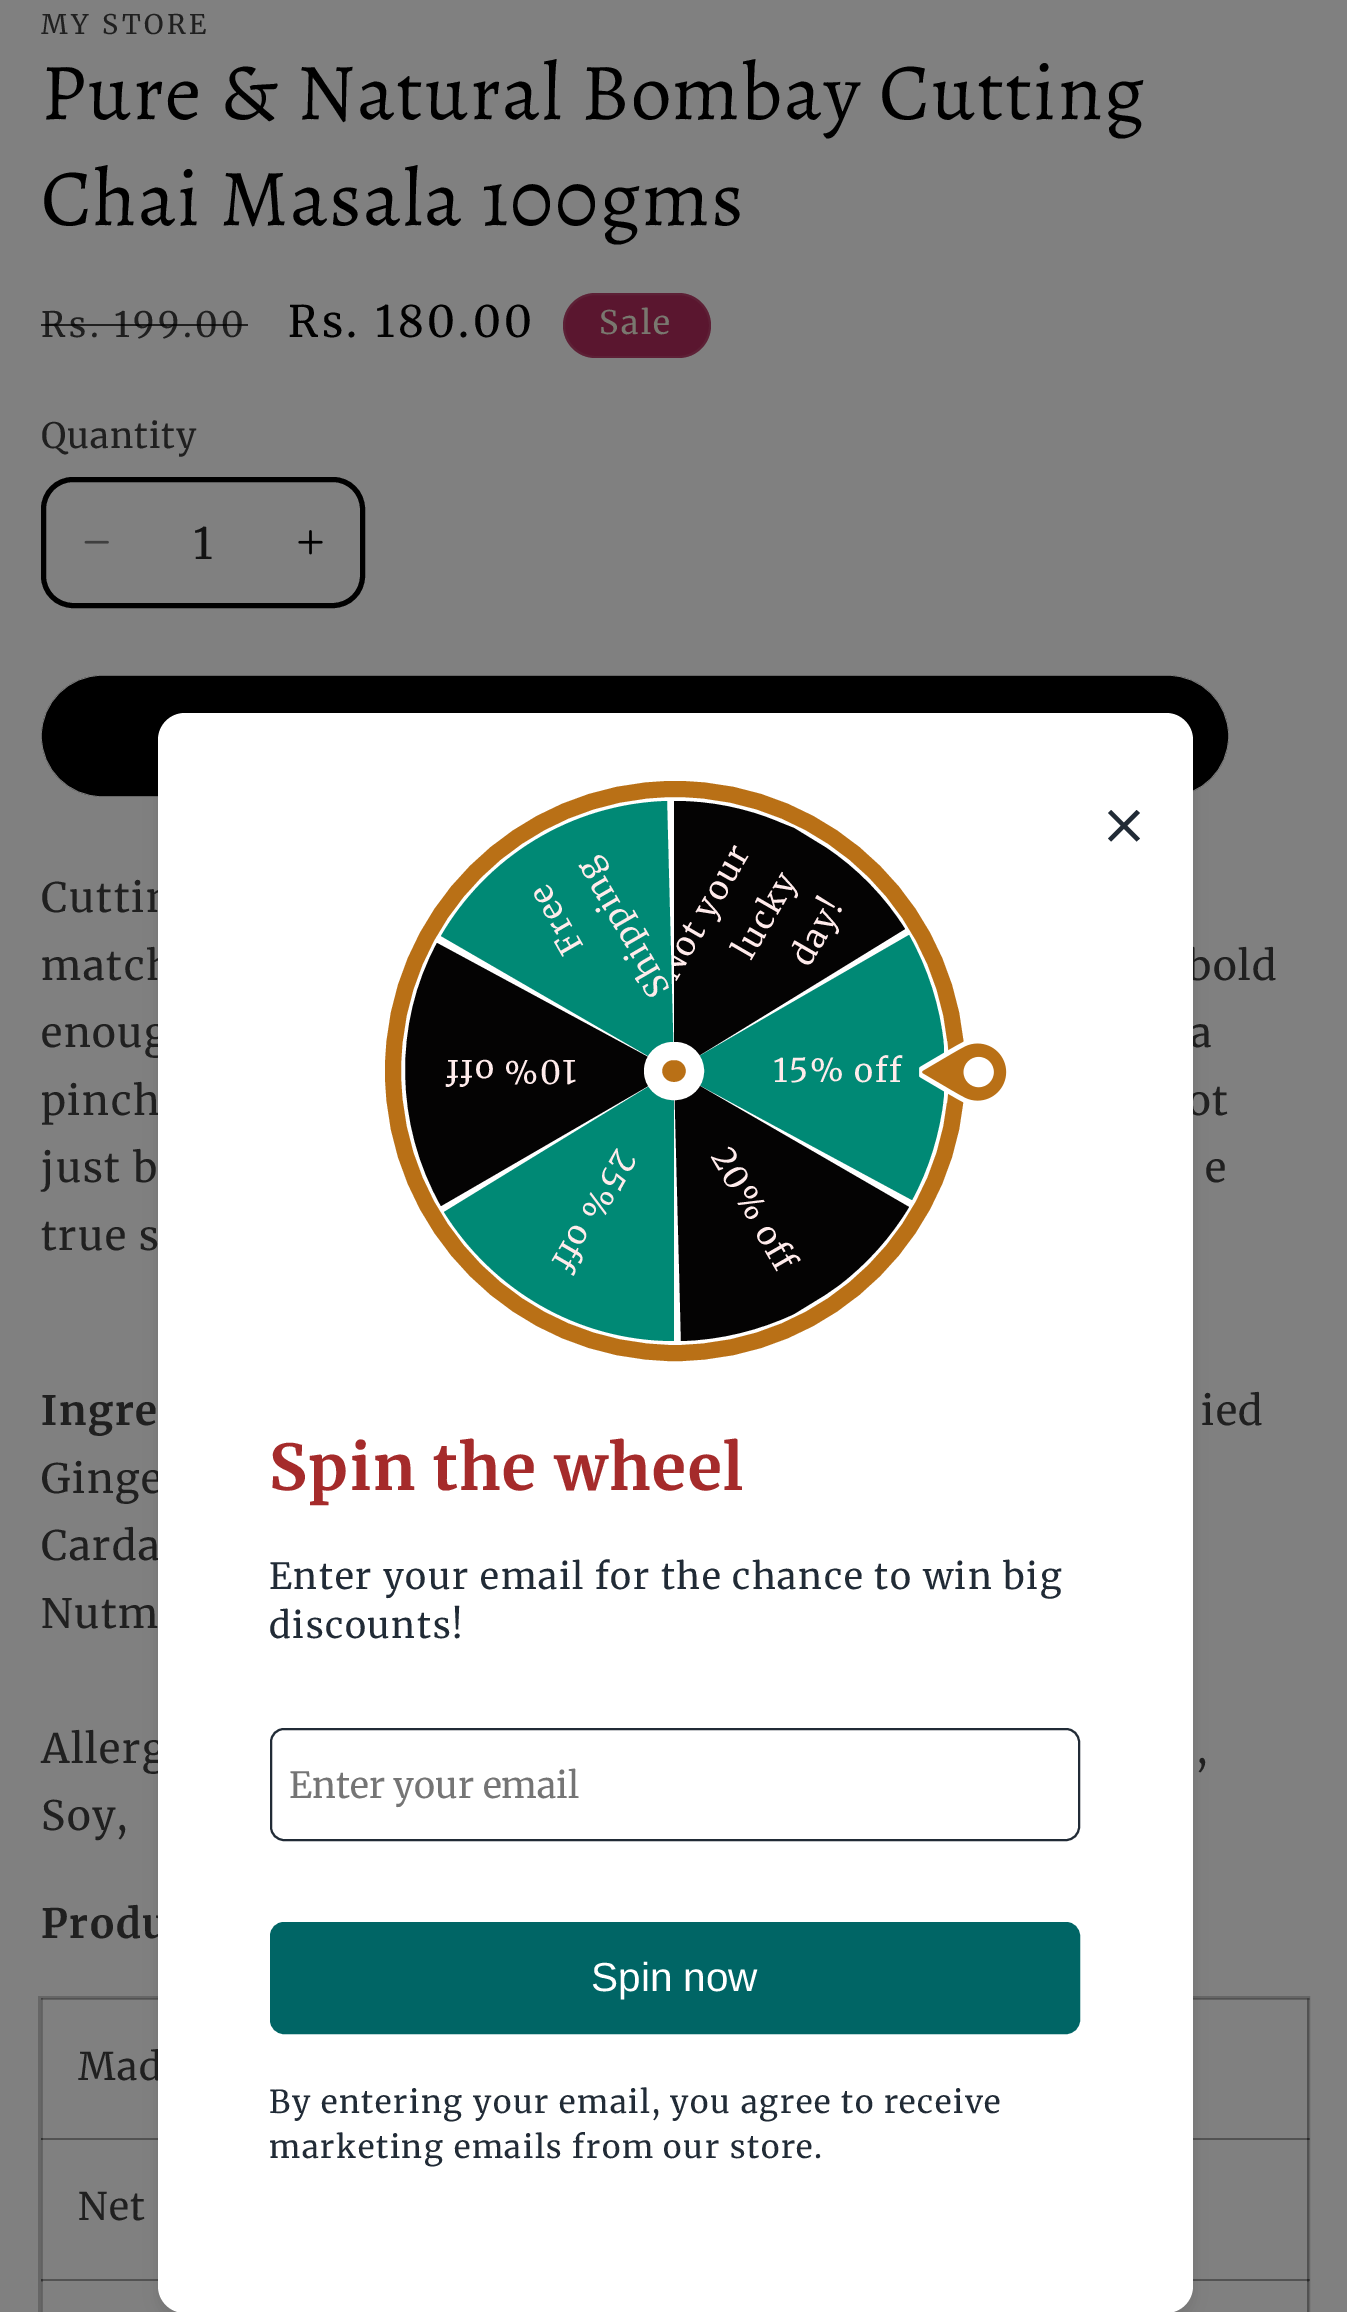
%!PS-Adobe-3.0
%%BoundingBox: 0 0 1347 2312
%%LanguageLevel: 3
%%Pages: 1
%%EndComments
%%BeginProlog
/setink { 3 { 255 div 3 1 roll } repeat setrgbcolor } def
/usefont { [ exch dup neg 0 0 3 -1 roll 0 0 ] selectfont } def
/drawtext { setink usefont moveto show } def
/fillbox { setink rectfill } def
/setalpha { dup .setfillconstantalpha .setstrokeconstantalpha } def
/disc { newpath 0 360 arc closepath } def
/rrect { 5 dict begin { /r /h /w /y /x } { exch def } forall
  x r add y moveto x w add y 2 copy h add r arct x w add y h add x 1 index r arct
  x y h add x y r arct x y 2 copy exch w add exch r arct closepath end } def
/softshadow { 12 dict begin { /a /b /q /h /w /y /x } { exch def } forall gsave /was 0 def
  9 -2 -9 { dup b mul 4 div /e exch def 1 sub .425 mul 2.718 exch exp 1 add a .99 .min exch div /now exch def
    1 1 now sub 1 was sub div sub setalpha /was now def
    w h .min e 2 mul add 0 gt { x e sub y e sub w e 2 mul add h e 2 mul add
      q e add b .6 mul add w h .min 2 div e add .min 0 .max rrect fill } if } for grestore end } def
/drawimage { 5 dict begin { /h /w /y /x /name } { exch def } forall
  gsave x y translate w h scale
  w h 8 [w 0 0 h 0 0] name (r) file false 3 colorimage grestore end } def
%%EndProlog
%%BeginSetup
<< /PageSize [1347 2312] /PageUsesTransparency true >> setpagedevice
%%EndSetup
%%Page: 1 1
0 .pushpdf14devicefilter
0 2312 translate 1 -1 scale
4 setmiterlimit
0 0 1347 2312 128 128 128 fillbox
/Merriweather-Regular 27 usefont
32 32 32 setink
41 34 moveto 3.5 0 (MY STORE) ashow
/Alegreya-Regular 81 usefont
0 0 0 setink
41 119 moveto 1.6 0 (Pure & Natural Bombay Cutting) ashow
41 225 moveto 1.6 0 (Chai Masala 100gms) ashow
/Merriweather-Regular 35 usefont
32 32 32 setink
41 337 moveto 3.5 0 (Rs. 199.00) ashow
0.75 setalpha
41 324 207 2 0 0 0 fillbox
/Merriweather-Regular 43.25 usefont
1 setalpha
288 337 moveto 3.5 0 (Rs. 180.00) ashow
90 22 47 setink
563 293 148 65 32.5 rrect fill
0.1 setalpha
121 120 111 setink
2 setlinewidth
564 294 146 63 31.5 rrect stroke
/Merriweather-Regular 32.5 usefont
1 setalpha
599 334 moveto 2.5 0 (Sale) ashow
/Merriweather-Regular 35 usefont
32 32 32 setink
41 448 moveto 1 0 (Quantity) ashow
(assets/img1.rgb) 84 540 25 4 drawimage
(assets/img2.rgb) 298 530 25 25 drawimage
0 0 0 setink
5 setlinewidth
43.5 479.5 319 126 29.5 rrect stroke
(1) 193 559 /Merriweather-Regular 43.25 19 19 19 drawtext
0 0 0 setink
41.35 675.35 1187.3 121.3 60.65 rrect gsave fill grestore
128 128 128 setink
0.7 setlinewidth
stroke
/Merriweather-Regular 40.5 usefont
32 32 32 setink
41 912 moveto 1.6 0 (Cuttin) ashow
41 980 moveto 1.6 0 (match) ashow
1187 980 moveto 1.6 0 (bold) ashow
41 1047 moveto 1.6 0 (enoug) ashow
1190 1047 moveto 1.6 0 (a) ashow
41 1115 moveto 1.6 0 (pinch) ashow
1187 1115 moveto 1.6 0 (ot) ashow
41 1182 moveto 1.6 0 (just b) ashow
1205 1182 moveto 1.6 0 (e) ashow
41 1250 moveto 1.6 0 (true s) ashow
/Merriweather-Bold 40.5 usefont
41 1425 moveto 1.6 0 (Ingre) ashow
/Merriweather-Regular 40.5 usefont
1201 1425 moveto 1.6 0 (ied) ashow
41 1493 moveto 1.6 0 (Ginge) ashow
41 1560 moveto 1.6 0 (Carda) ashow
41 1628 moveto 1.6 0 (Nutm) ashow
41 1763 moveto 1.6 0 (Allerg) ashow
1197 1763 moveto 1.6 0 (,) ashow
41 1830 moveto 1.6 0 (Soy,) ashow
/Merriweather-Bold 40.5 usefont
41 1938 moveto 1.6 0 (Produ) ashow
102 102 102 setink
3 setlinewidth
39.5 1997.5 1269 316 rectstroke
0.2 setalpha
41 1998 117 2 0 0 0 fillbox
41 2138 117 2 0 0 0 fillbox
41 2279 117 2 0 0 0 fillbox
41 2279 2 33 0 0 0 fillbox
41 2279 117 2 0 0 0 fillbox
41 2138 2 144 0 0 0 fillbox
41 2138 117 2 0 0 0 fillbox
41 1998 2 142 0 0 0 fillbox
/Merriweather-Regular 38 usefont
1 setalpha
32 32 32 setink
78 2080 moveto 1.6 0 (Mad) ashow
0.2 setalpha
1193 1998 117 2 0 0 0 fillbox
1193 2138 117 2 0 0 0 fillbox
1193 2279 117 2 0 0 0 fillbox
1307 2279 2 33 0 0 0 fillbox
1307 2138 2 144 0 0 0 fillbox
1307 1998 2 142 0 0 0 fillbox
1193 2138 117 2 0 0 0 fillbox
1 setalpha
32 32 32 setink
78 2220 moveto 1.6 0 (Net) ashow
0.2 setalpha
1193 2279 117 2 0 0 0 fillbox
1 setalpha
158 722 1035 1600 27 7 0.1 softshadow
255 255 255 setink
158 713 1035 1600 27 rrect fill
33 43 54 setink
1111 810 moveto 1140 838.5 lineto 1136.5 841.5 lineto 1108 813 lineto closepath fill
1108 838.5 moveto 1136.5 810 lineto 1140 813 lineto 1111 841.5 lineto closepath fill
185 112 22 setink
16 setlinewidth
675 1071 282 disc stroke
4 3 3 setink
441 1206 moveto 674 1071 lineto 437 943 lineto 393 1024 395 1125 441 1206 curveto closepath fill
/Merriweather-Regular 32.5 usefont
255 235 235 setink
gsave 577 1060 translate 180 rotate 0 0 moveto 1.6 0 (10% off) ashow grestore
0 137 117 setink
667 801 moveto 674 1071 lineto 441 936 lineto 486 858 570 804 667 801 curveto closepath fill
255 235 235 setink
gsave 584 946 translate -120 rotate 0 0 moveto 1.6 0 (Free) ashow grestore
gsave 671 989 translate -120 rotate 0 0 moveto 1.6 0 (Shipping) ashow grestore
4 3 3 setink
675 801 moveto 710 801 746 808 779 822 curveto 794 828 lineto 825 847 lineto 857 868 885 897 905 929 curveto 674 1071 lineto 674 801 lineto closepath fill
gsave
936 910.5 moveto 674 1071 lineto 674 759 lineto closepath clip newpath
255 235 235 setink
gsave 676 982 translate -60 rotate 0 0 moveto 1.6 0 (Not your) ashow grestore
grestore
255 235 235 setink
gsave 751 961 translate -60 rotate 0 0 moveto 1.6 0 (lucky) ashow grestore
gsave 809 968 translate -60 rotate 0 0 moveto 1.6 0 (day!) ashow grestore
0 137 117 setink
944 1096 moveto 940 1133 929 1169 912 1200 curveto 675 1072 lineto 675 1070 lineto 909 935 lineto 928 969 940 1006 944 1046 curveto closepath fill
255 235 235 setink
773 1082 moveto 1.6 0 (15% off) ashow
0 137 117 setink
444 1212 moveto 492 1289 577 1341 674 1341 curveto 674 1071 lineto closepath fill
255 235 235 setink
gsave 617 1147 translate 120 rotate 0 0 moveto 1.6 0 (25% off) ashow grestore
4 3 3 setink
794 1314 moveto 825 1295 lineto 838 1286 lineto 867 1264 891 1237 909 1207 curveto 674 1071 lineto 681 1341 lineto 721 1340 760 1330 794 1314 curveto closepath fill
255 235 235 setink
gsave 710 1156 translate 60 rotate 0 0 moveto 1.6 0 (20% off) ashow grestore
(assets/img3.rgb) 919 1041 88 62 drawimage
185 112 22 setink
653 1051 42 40 20 rrect gsave fill grestore
255 255 255 setink
18 setlinewidth
stroke
/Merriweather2-Bold 63 usefont
165 43 43 setink
269 1490 moveto 1.6 0 (Spin the wheel) ashow
/Merriweather-Regular 36 usefont
33 43 54 setink
269 1589 moveto 1.6 0 (Enter your email for the chance to win big) ashow
269 1638 moveto 1.6 0 (discounts!) ashow
2 setlinewidth
271 1729 808 111 13 rrect stroke
(Enter your email) 289 1798 /Merriweather-Regular 36 117 117 117 drawtext
0 101 101 setink
272.5 1924.5 805 107 11.5 rrect gsave fill grestore
5 setlinewidth
stroke
(Spin now) 591 1991 /LiberationSans-Regular 40.5 255 255 255 drawtext
/Merriweather-Regular 31.5 usefont
33 43 54 setink
269 2113 moveto 1.6 0 (By entering your email, you agree to receive) ashow
269 2158 moveto 1.6 0 (marketing emails from our store.) ashow
.poppdf14devicefilter showpage
%%EOF
